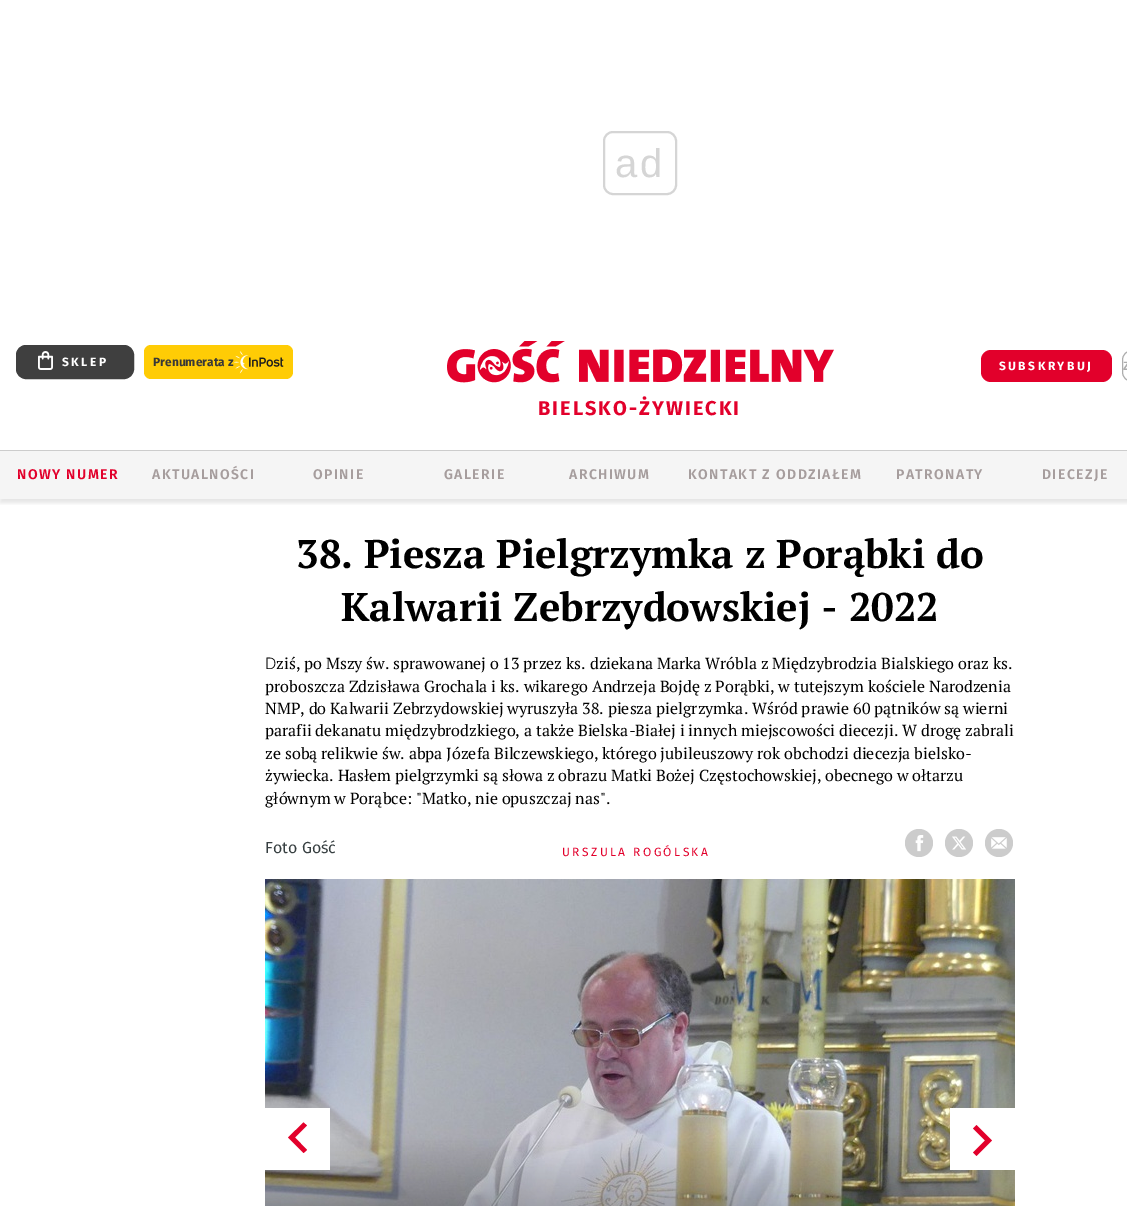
%!PS-Adobe-3.0
%%BoundingBox: 0 0 1127 1206
%%LanguageLevel: 3
%%Pages: 1
%%EndComments
%%BeginProlog
/setink { 3 { 255 div 3 1 roll } repeat setrgbcolor } def
/usefont { [ exch dup neg 0 0 3 -1 roll 0 0 ] selectfont } def
/drawtext { setink usefont moveto show } def
/fillbox { setink rectfill } def
/setalpha { dup .setfillconstantalpha .setstrokeconstantalpha } def
/disc { newpath 0 360 arc closepath } def
/rrect { 5 dict begin { /r /h /w /y /x } { exch def } forall
  x r add y moveto x w add y 2 copy h add r arct x w add y h add x 1 index r arct
  x y h add x y r arct x y 2 copy exch w add exch r arct closepath end } def
/softshadow { 12 dict begin { /a /b /q /h /w /y /x } { exch def } forall gsave /was 0 def
  9 -2 -9 { dup b mul 4 div /e exch def 1 sub .425 mul 2.718 exch exp 1 add a .99 .min exch div /now exch def
    1 1 now sub 1 was sub div sub setalpha /was now def
    w h .min e 2 mul add 0 gt { x e sub y e sub w e 2 mul add h e 2 mul add
      q e add b .6 mul add w h .min 2 div e add .min 0 .max rrect fill } if } for grestore end } def
/drawimage { 5 dict begin { /h /w /y /x /name } { exch def } forall
  gsave x y translate w h scale
  w h 8 [w 0 0 h 0 0] name (r) file false 3 colorimage grestore end } def
%%EndProlog
%%BeginSetup
<< /PageSize [1127 1206] /PageUsesTransparency true >> setpagedevice
%%EndSetup
%%Page: 1 1
0 .pushpdf14devicefilter
0 1206 translate 1 -1 scale
4 setmiterlimit
0 0 1127 1206 255 255 255 fillbox
213 213 213 setink
2 setlinewidth
604 132 72 62 9 rrect stroke
/LiberationSans-Regular 40 usefont
615 177 moveto 3 0 (ad) ashow
0 451 1127 48 245 245 245 fillbox
63 63 63 setink
16.5 345.5 117 33 9.5 rrect gsave fill grestore
1 setlinewidth
stroke
(assets/img1.rgb) 38 351 15 19 drawimage
/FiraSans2-Bold 12 usefont
255 255 255 setink
62 366 moveto 2.4 0 (SKLEP) ashow
255 204 5 setink
144 345 149 34 7 rrect fill
(Prenumerata z) 153 366 /FiraSans-Bold 12 56 56 56 drawtext
(assets/img2.rgb) 234 351 50 23 drawimage
226 0 43 setink
981 350 131 32 10 rrect fill
/FiraSans2-Bold 12 usefont
255 255 255 setink
999 370 moveto 2.4 0 (SUBSKRYBUJ) ashow
173 173 173 setink
1122.5 350.5 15 31 9.5 rrect stroke
/FiraSans-SemiBold 12 usefont
1123 370 moveto 2.4 0 (Z) ashow
(assets/img3.rgb) 447 341 387 42 drawimage
/FiraSans2-Bold 20 usefont
226 0 43 setink
538 415 moveto 2 0 (BIELSKO-ŻYWIECKI) ashow
gsave
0 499 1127 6 rectclip
0 0 0 setink
0 454 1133 49 0 2 0.1 softshadow
grestore
0 450 1127 1 204 204 204 fillbox
/FiraSans-SemiBold 14 usefont
226 0 43 setink
17 479 moveto 1.4 0 (NOWY NUMER) ashow
166 157 157 setink
152 479 moveto 1.4 0 (AKTUALNOŚCI) ashow
313 479 moveto 1.4 0 (OPINIE) ashow
444 479 moveto 1.4 0 (GALERIE) ashow
569 479 moveto 1.4 0 (ARCHIWUM) ashow
688 479 moveto 1.4 0 (KONTAKT Z ODDZIAŁEM) ashow
896 479 moveto 1.4 0 (PATRONATY) ashow
1042 479 moveto 1.4 0 (DIECEZJE) ashow
(38. Piesza Pielgrzymka z Porąbki do) 296 568 /PTSerif-Bold 40 0 0 0 drawtext
(Kalwarii Zebrzydowskiej - 2022) 341 621 /PTSerif-Bold 40 0 0 0 drawtext
(D) 265 669 /NotoSans-Light 16 0 0 0 drawtext
(ziś, po Mszy św. sprawowanej o 13 przez ks. dziekana Marka Wróbla z Międzybrodzia Bialskiego oraz ks.) 276 669 /PTSerif-Regular 16 0 0 0 drawtext
(proboszcza Zdzisława Grochala i ks. wikarego Andrzeja Bojdę z Porąbki, w tutejszym kościele Narodzenia) 265 692 /PTSerif-Regular 16 0 0 0 drawtext
(NMP, do Kalwarii Zebrzydowskiej wyruszyła 38. piesza pielgrzymka. Wśród prawie 60 pątników są wierni) 265 714 /PTSerif-Regular 16 0 0 0 drawtext
(parafii dekanatu międzybrodzkiego, a także Bielska-Białej i innych miejscowości diecezji. W drogę zabrali) 265 736 /PTSerif-Regular 16 0 0 0 drawtext
(ze sobą relikwie św. abpa Józefa Bilczewskiego, którego jubileuszowy rok obchodzi diecezja bielsko-) 265 759 /PTSerif-Regular 16 0 0 0 drawtext
(żywiecka. Hasłem pielgrzymki są słowa z obrazu Matki Bożej Częstochowskiej, obecnego w ołtarzu) 265 781 /PTSerif-Regular 16 0 0 0 drawtext
(głównym w Porąbce: "Matko, nie opuszczaj nas".) 265 804 /PTSerif-Regular 16 0 0 0 drawtext
(Foto Gość) 265 853 /FiraSans-Regular 16 55 63 65 drawtext
/FiraSans-Regular 12 usefont
226 0 43 setink
562 856 moveto 2.4 0 (URSZULA ROGÓLSKA) ashow
204 204 204 setink
919 843 14 disc fill
(assets/img4.rgb) 915 835 9 17 drawimage
959 843 14 disc fill
(assets/img5.rgb) 952 836 14 14 drawimage
999 843 14 disc fill
(assets/img6.rgb) 991 837 16 12 drawimage
(assets/img7.rgb) 265 879 750 327 drawimage
265 1108 65 62 255 255 255 fillbox
226 0 43 setink
307 1150 moveto 303.5 1153 lineto 288 1137.5 lineto 303.5 1122.5 lineto 307 1125.5 lineto 295 1137.5 lineto closepath fill
950 1108 65 62 255 255 255 fillbox
226 0 43 setink
973 1128.5 moveto 976.5 1125 lineto 992 1140.5 lineto 976.5 1156 lineto 973 1152.5 lineto 985 1140.5 lineto closepath fill
.poppdf14devicefilter showpage
%%EOF
